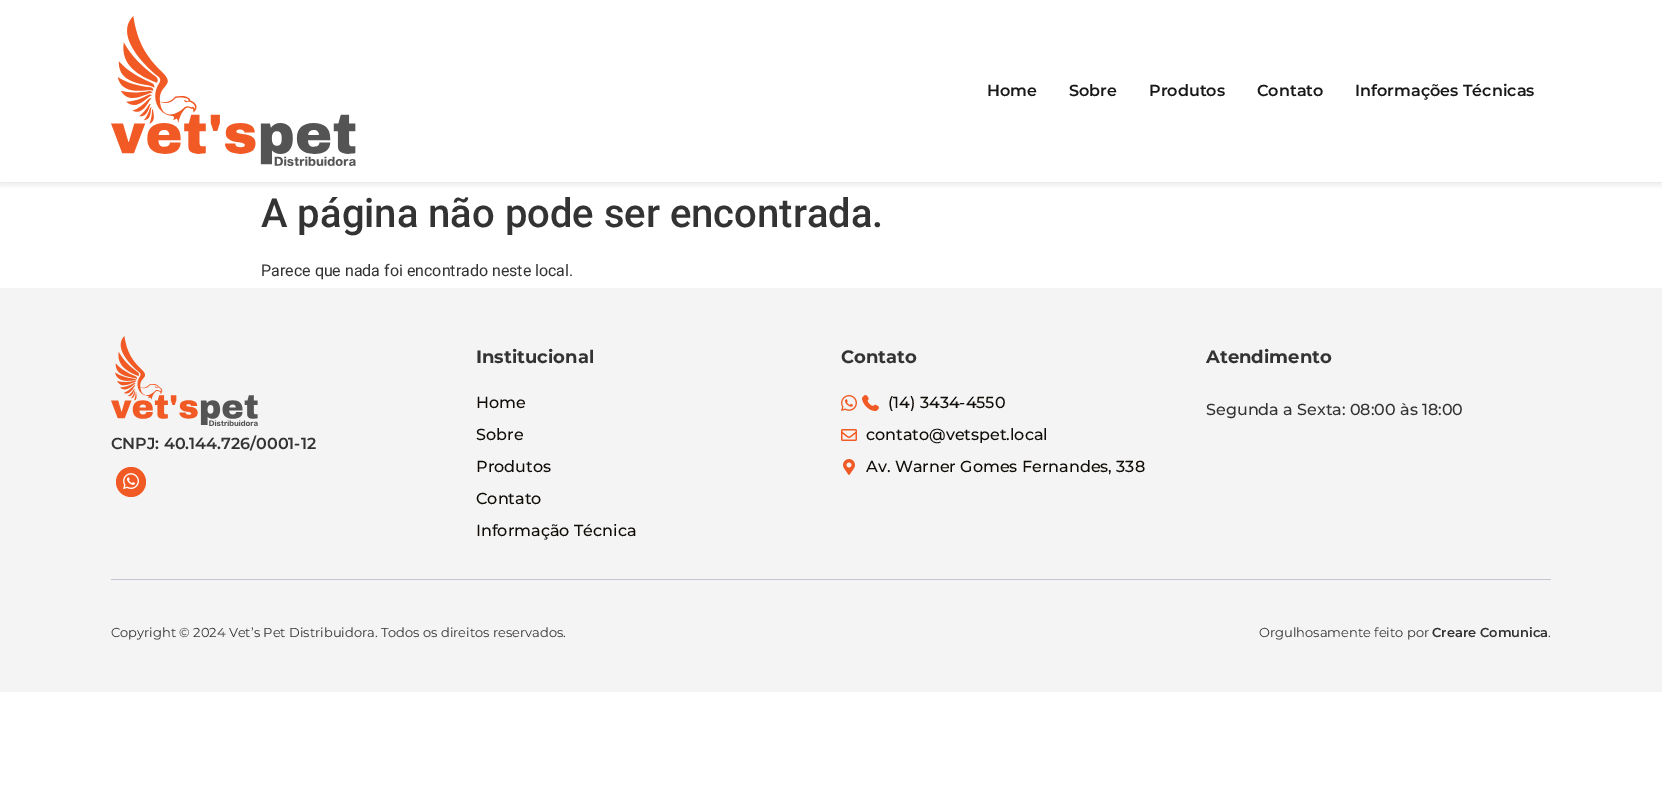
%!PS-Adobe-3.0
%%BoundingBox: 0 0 1662 794
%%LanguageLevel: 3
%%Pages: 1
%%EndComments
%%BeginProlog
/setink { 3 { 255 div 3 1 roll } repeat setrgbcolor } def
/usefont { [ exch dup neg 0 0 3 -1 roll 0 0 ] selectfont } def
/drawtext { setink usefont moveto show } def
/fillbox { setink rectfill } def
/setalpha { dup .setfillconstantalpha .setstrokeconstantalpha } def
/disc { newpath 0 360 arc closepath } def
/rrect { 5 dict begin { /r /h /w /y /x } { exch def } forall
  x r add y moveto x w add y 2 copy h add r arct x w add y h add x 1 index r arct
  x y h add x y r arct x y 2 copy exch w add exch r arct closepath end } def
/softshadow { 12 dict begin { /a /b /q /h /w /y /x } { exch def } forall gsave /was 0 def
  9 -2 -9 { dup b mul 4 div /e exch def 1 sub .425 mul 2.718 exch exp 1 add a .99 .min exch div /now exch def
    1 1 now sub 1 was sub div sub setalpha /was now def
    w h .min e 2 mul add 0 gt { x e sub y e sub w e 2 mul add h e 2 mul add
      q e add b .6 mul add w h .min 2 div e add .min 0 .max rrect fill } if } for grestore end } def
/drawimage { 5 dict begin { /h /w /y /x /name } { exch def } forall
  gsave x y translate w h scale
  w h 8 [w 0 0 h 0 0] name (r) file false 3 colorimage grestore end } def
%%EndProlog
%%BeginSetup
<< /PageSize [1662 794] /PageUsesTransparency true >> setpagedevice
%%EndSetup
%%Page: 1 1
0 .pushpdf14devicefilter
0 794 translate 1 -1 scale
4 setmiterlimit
0 0 1662 794 255 255 255 fillbox
gsave
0 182 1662 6 rectclip
0 0 0 setink
0 0 1662 182 0 5 0.15 softshadow
grestore
(assets/img1.rgb) 111 16 245 150 drawimage
(Home) 987 96 /Montserrat-SemiBold 16 24 24 24 drawtext
(Sobre) 1069 96 /Montserrat-SemiBold 16 24 24 24 drawtext
(Produtos) 1149 96 /Montserrat-SemiBold 16 24 24 24 drawtext
(Contato) 1257 96 /Montserrat-SemiBold 16 24 24 24 drawtext
(Informações Técnicas) 1355 96 /Montserrat-SemiBold 16 24 24 24 drawtext
(A página não pode ser encontrada.) 261 227 /Roboto-Medium 40 51 51 51 drawtext
(Parece que nada foi encontrado neste local.) 261 276 /Roboto-Regular 16 51 51 51 drawtext
0 288 1662 404 244 244 244 fillbox
(assets/img2.rgb) 111 336 147 90 drawimage
(CNPJ: 40.144.726/0001-12) 111 449 /Montserrat-SemiBold 16 51 51 51 drawtext
241 90 36 setink
131 482 15 disc fill
(assets/img3.rgb) 123 473 16 17 drawimage
(Institucional) 476 363 /Montserrat-Bold 18 51 51 51 drawtext
(Home) 476 408 /Montserrat-Medium 16 16 12 8 drawtext
(Sobre) 476 440 /Montserrat-Medium 16 16 12 8 drawtext
(Produtos) 476 472 /Montserrat-Medium 16 16 12 8 drawtext
(Contato) 476 504 /Montserrat-Medium 16 16 12 8 drawtext
(Informação Técnica) 476 536 /Montserrat-Medium 16 16 12 8 drawtext
(Contato) 841 363 /Montserrat-Bold 18 51 51 51 drawtext
(assets/img4.rgb) 841 395 38 16 drawimage
(\(14\) 3434-4550) 888 408 /Montserrat-Medium 16 16 12 8 drawtext
(assets/img5.rgb) 841 429 16 12 drawimage
(contato@vetspet.local) 866 440 /Montserrat-Medium 16 16 12 8 drawtext
(assets/img6.rgb) 843 459 12 16 drawimage
(Av. Warner Gomes Fernandes, 338) 866 472 /Montserrat-Medium 16 16 12 8 drawtext
(Atendimento) 1206 363 /Montserrat-Bold 18 51 51 51 drawtext
(Segunda a Sexta: 08:00 às 18:00) 1206 415 /Montserrat-Medium 16 51 51 51 drawtext
111 579 1440 1 193 199 205 fillbox
(Copyright © 2024 Vet’s Pet Distribuidora. Todos os direitos reservados.) 111 637 /Montserrat-Regular 13 51 51 51 drawtext
(Orgulhosamente feito por) 1259 637 /Montserrat-Regular 13 51 51 51 drawtext
(Creare Comunica) 1432 637 /Montserrat-SemiBold 13 51 51 51 drawtext
(.) 1548 637 /Montserrat-Regular 13 51 51 51 drawtext
.poppdf14devicefilter showpage
%%EOF
